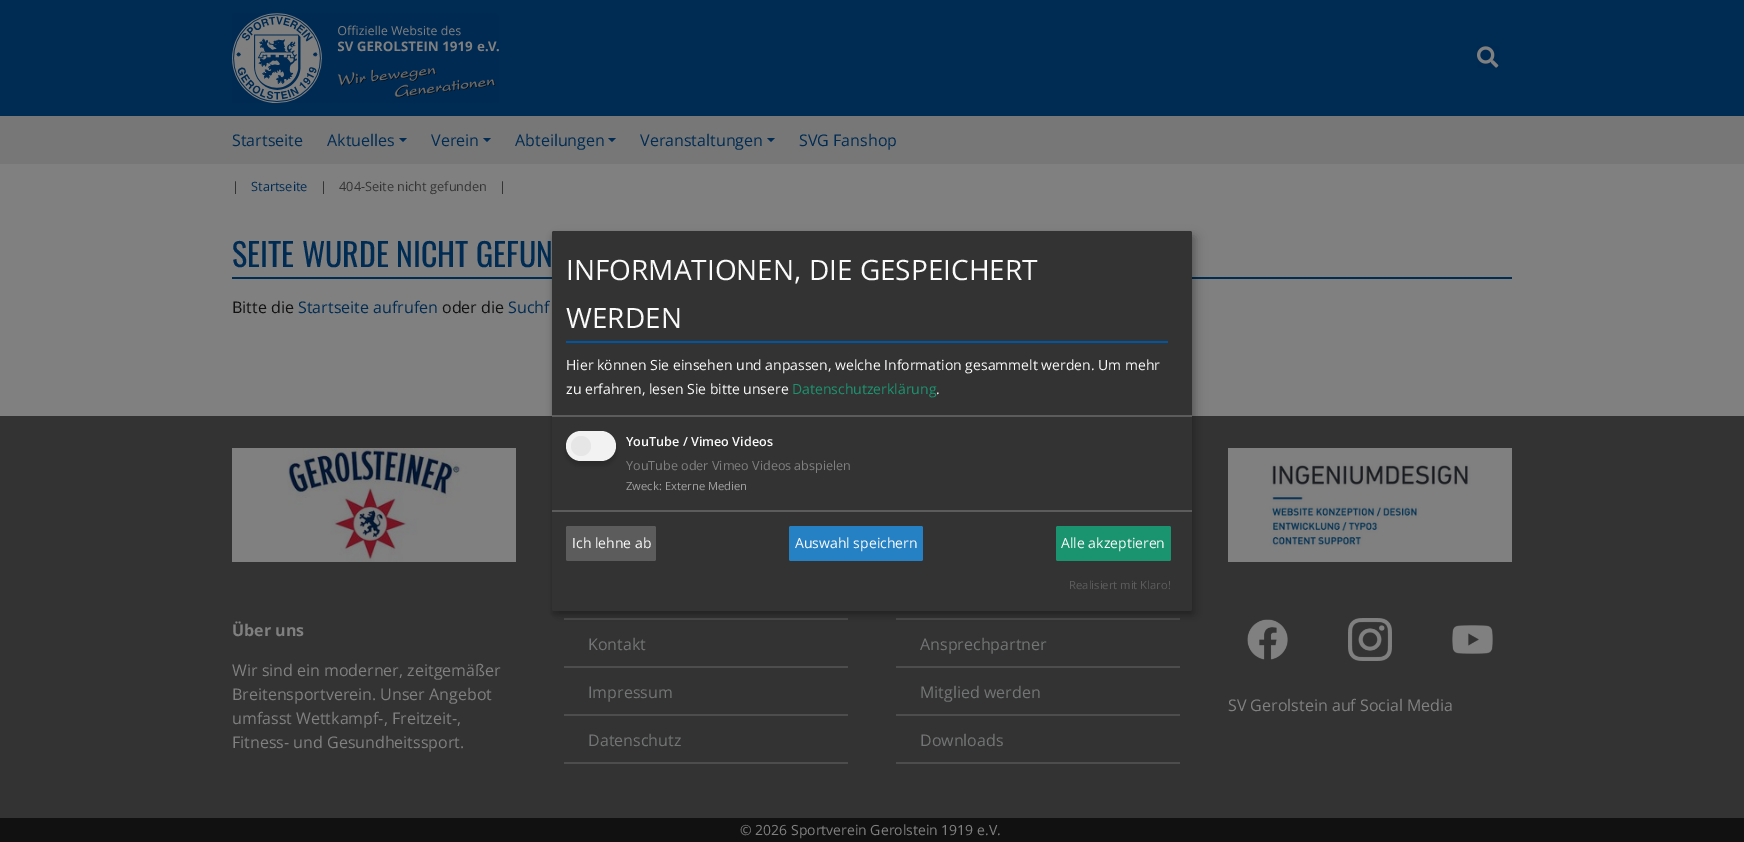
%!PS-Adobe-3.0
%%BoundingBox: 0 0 1744 842
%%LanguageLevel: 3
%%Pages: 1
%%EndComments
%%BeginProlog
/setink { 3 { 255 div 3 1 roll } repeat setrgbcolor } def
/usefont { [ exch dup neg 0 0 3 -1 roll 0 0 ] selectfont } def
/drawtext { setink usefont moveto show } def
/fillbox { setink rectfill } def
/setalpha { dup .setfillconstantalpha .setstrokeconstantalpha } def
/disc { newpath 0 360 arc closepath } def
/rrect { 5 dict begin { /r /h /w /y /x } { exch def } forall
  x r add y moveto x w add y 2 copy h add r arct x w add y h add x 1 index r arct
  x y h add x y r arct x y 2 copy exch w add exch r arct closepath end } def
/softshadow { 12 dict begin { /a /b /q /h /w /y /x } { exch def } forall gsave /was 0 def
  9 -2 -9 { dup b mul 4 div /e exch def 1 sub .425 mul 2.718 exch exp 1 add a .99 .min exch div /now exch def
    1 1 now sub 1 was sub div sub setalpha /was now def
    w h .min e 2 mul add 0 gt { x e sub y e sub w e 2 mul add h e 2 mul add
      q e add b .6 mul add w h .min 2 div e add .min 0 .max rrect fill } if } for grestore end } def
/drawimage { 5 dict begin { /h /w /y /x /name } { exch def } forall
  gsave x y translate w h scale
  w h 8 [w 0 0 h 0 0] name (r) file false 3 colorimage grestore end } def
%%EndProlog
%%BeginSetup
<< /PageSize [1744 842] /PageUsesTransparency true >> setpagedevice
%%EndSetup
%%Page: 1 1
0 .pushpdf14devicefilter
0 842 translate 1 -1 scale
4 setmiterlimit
0 0 1744 842 128 128 128 fillbox
0 0 1744 116 0 43 82 fillbox
(assets/img1.rgb) 232 13 267 90 drawimage
(assets/img2.rgb) 1477 46 22 22 drawimage
0 116 1744 48 119 119 119 fillbox
(Startseite) 232 146 /OpenSans-Regular 16 0 43 82 drawtext
(Aktuelles) 327 146 /OpenSans-Regular 16 0 43 82 drawtext
399 138 moveto 407 138 lineto 403 142 lineto closepath fill
(Verein) 431 146 /OpenSans-Regular 16 0 43 82 drawtext
483 138 moveto 491 138 lineto 487 142 lineto closepath fill
(Abteilungen) 515 146 /OpenSans-Regular 16 0 43 82 drawtext
608 138 moveto 616 138 lineto 612 142 lineto closepath fill
(Veranstaltungen) 640 146 /OpenSans-Regular 16 0 43 82 drawtext
767 138 moveto 775 138 lineto 771 142 lineto closepath fill
(SVG Fanshop) 799 146 /OpenSans-Regular 16 0 43 82 drawtext
(|) 232 191 /OpenSans-Regular 12.75 51 51 51 drawtext
(Startseite) 251 191 /OpenSans-Regular 12.75 0 43 82 drawtext
(|) 320 191 /OpenSans-Regular 12.75 51 51 51 drawtext
(404-Seite nicht gefunden) 339 191 /OpenSans-Regular 12.75 51 51 51 drawtext
(|) 499 191 /OpenSans-Regular 12.75 51 51 51 drawtext
232 277 1280 2 0 43 82 fillbox
(SEITE WURDE NICHT GEFUN) 232 267 /Oswald-Regular 32 0 43 82 drawtext
(Bitte die) 232 313 /OpenSans-Regular 16 17 17 17 drawtext
(Startseite aufrufen) 298 313 /OpenSans-Regular 16 0 43 82 drawtext
(oder die) 442 313 /OpenSans-Regular 16 17 17 17 drawtext
(Suchf) 508 313 /OpenSans-Regular 16 0 43 82 drawtext
0 416 1744 402 51 51 51 fillbox
564 618 284 2 77 77 77 fillbox
896 618 284 2 77 77 77 fillbox
0 0 0 setink
557 236 640 380 2 5 0.19 softshadow
552 235 640 380 2 3 0.2 softshadow
51 51 51 setink
552 231 640 380 2 rrect fill
552 415 640 2 92 92 92 fillbox
566 341 602 2 0 85 164 fillbox
(INFORMATIONEN, DIE GESPEICHERT) 566 280 /OpenSans-Regular 28 250 250 250 drawtext
(WERDEN) 566 328 /OpenSans-Regular 28 250 250 250 drawtext
(Hier können Sie einsehen und anpassen, welche Information gesammelt werden. Um mehr) 566 370 /OpenSans-Regular 14 250 250 250 drawtext
(zu erfahren, lesen Sie bitte unsere) 566 394 /OpenSans-Regular 14 250 250 250 drawtext
(Datenschutzerklärung) 792 394 /OpenSans-Regular 14 26 147 111 drawtext
(.) 936 394 /OpenSans-Regular 14 250 250 250 drawtext
0 0 0 setink
566 435 50 30 15 3 0.2 softshadow
242 242 242 setink
566 431 50 30 15 rrect fill
230 230 230 setink
581 446 10 disc fill
(YouTube / Vimeo Videos) 626 446 /OpenSans-SemiBold 12.6 250 250 250 drawtext
(YouTube oder Vimeo Videos abspielen) 626 470 /OpenSans-Regular 12.6 128 128 128 drawtext
(Zweck: Externe Medien) 626 490 /OpenSans-Regular 11.25 160 160 160 drawtext
552 510 640 2 92 92 92 fillbox
566 526 90 35 2 rrect fill
(Ich lehne ab) 572 548 /OpenSans-Regular 14 250 250 250 drawtext
37 129 196 setink
789 526 134 35 2 rrect fill
(Auswahl speichern) 795 548 /OpenSans-Regular 14 250 250 250 drawtext
26 147 111 setink
1056 526 115 35 2 rrect fill
(Alle akzeptieren) 1061 548 /OpenSans-Regular 14 250 250 250 drawtext
(Realisiert mit Klaro!) 1069 589 /OpenSans-Regular 11.25 92 92 92 drawtext
(assets/img3.rgb) 232 448 284 114 drawimage
(assets/img4.rgb) 1228 448 284 114 drawimage
(Über uns) 232 636 /OpenSans-Bold 16 128 128 128 drawtext
(Wir sind ein moderner, zeitgemäßer) 232 676 /OpenSans-Regular 16 128 128 128 drawtext
(Breitensportverein. Unser Angebot) 232 700 /OpenSans-Regular 16 128 128 128 drawtext
(umfasst Wettkampf-, Freitzeit-,) 232 724 /OpenSans-Regular 16 128 128 128 drawtext
(Fitness- und Gesundheitssport.) 232 748 /OpenSans-Regular 16 128 128 128 drawtext
564 762 284 2 77 77 77 fillbox
(Kontakt) 588 650 /OpenSans-Regular 16 115 116 117 drawtext
564 666 284 2 77 77 77 fillbox
(Impressum) 588 698 /OpenSans-Regular 16 115 116 117 drawtext
564 714 284 2 77 77 77 fillbox
(Datenschutz) 588 746 /OpenSans-Regular 16 115 116 117 drawtext
896 762 284 2 77 77 77 fillbox
(Ansprechpartner) 920 650 /OpenSans-Regular 16 115 116 117 drawtext
896 666 284 2 77 77 77 fillbox
(Mitglied werden) 920 698 /OpenSans-Regular 16 115 116 117 drawtext
896 714 284 2 77 77 77 fillbox
(Downloads) 920 746 /OpenSans-Regular 16 115 116 117 drawtext
(assets/img5.rgb) 1247 619 41 41 drawimage
(assets/img6.rgb) 1348 618 44 43 drawimage
(assets/img7.rgb) 1452 625 41 29 drawimage
(SV Gerolstein auf Social Media) 1228 711 /OpenSans-Regular 16 128 128 128 drawtext
0 818 1744 24 17 17 17 fillbox
(© 2026 Sportverein Gerolstein 1919 e.V.) 740 835 /OpenSans-Regular 14 128 128 128 drawtext
.poppdf14devicefilter showpage
%%EOF
